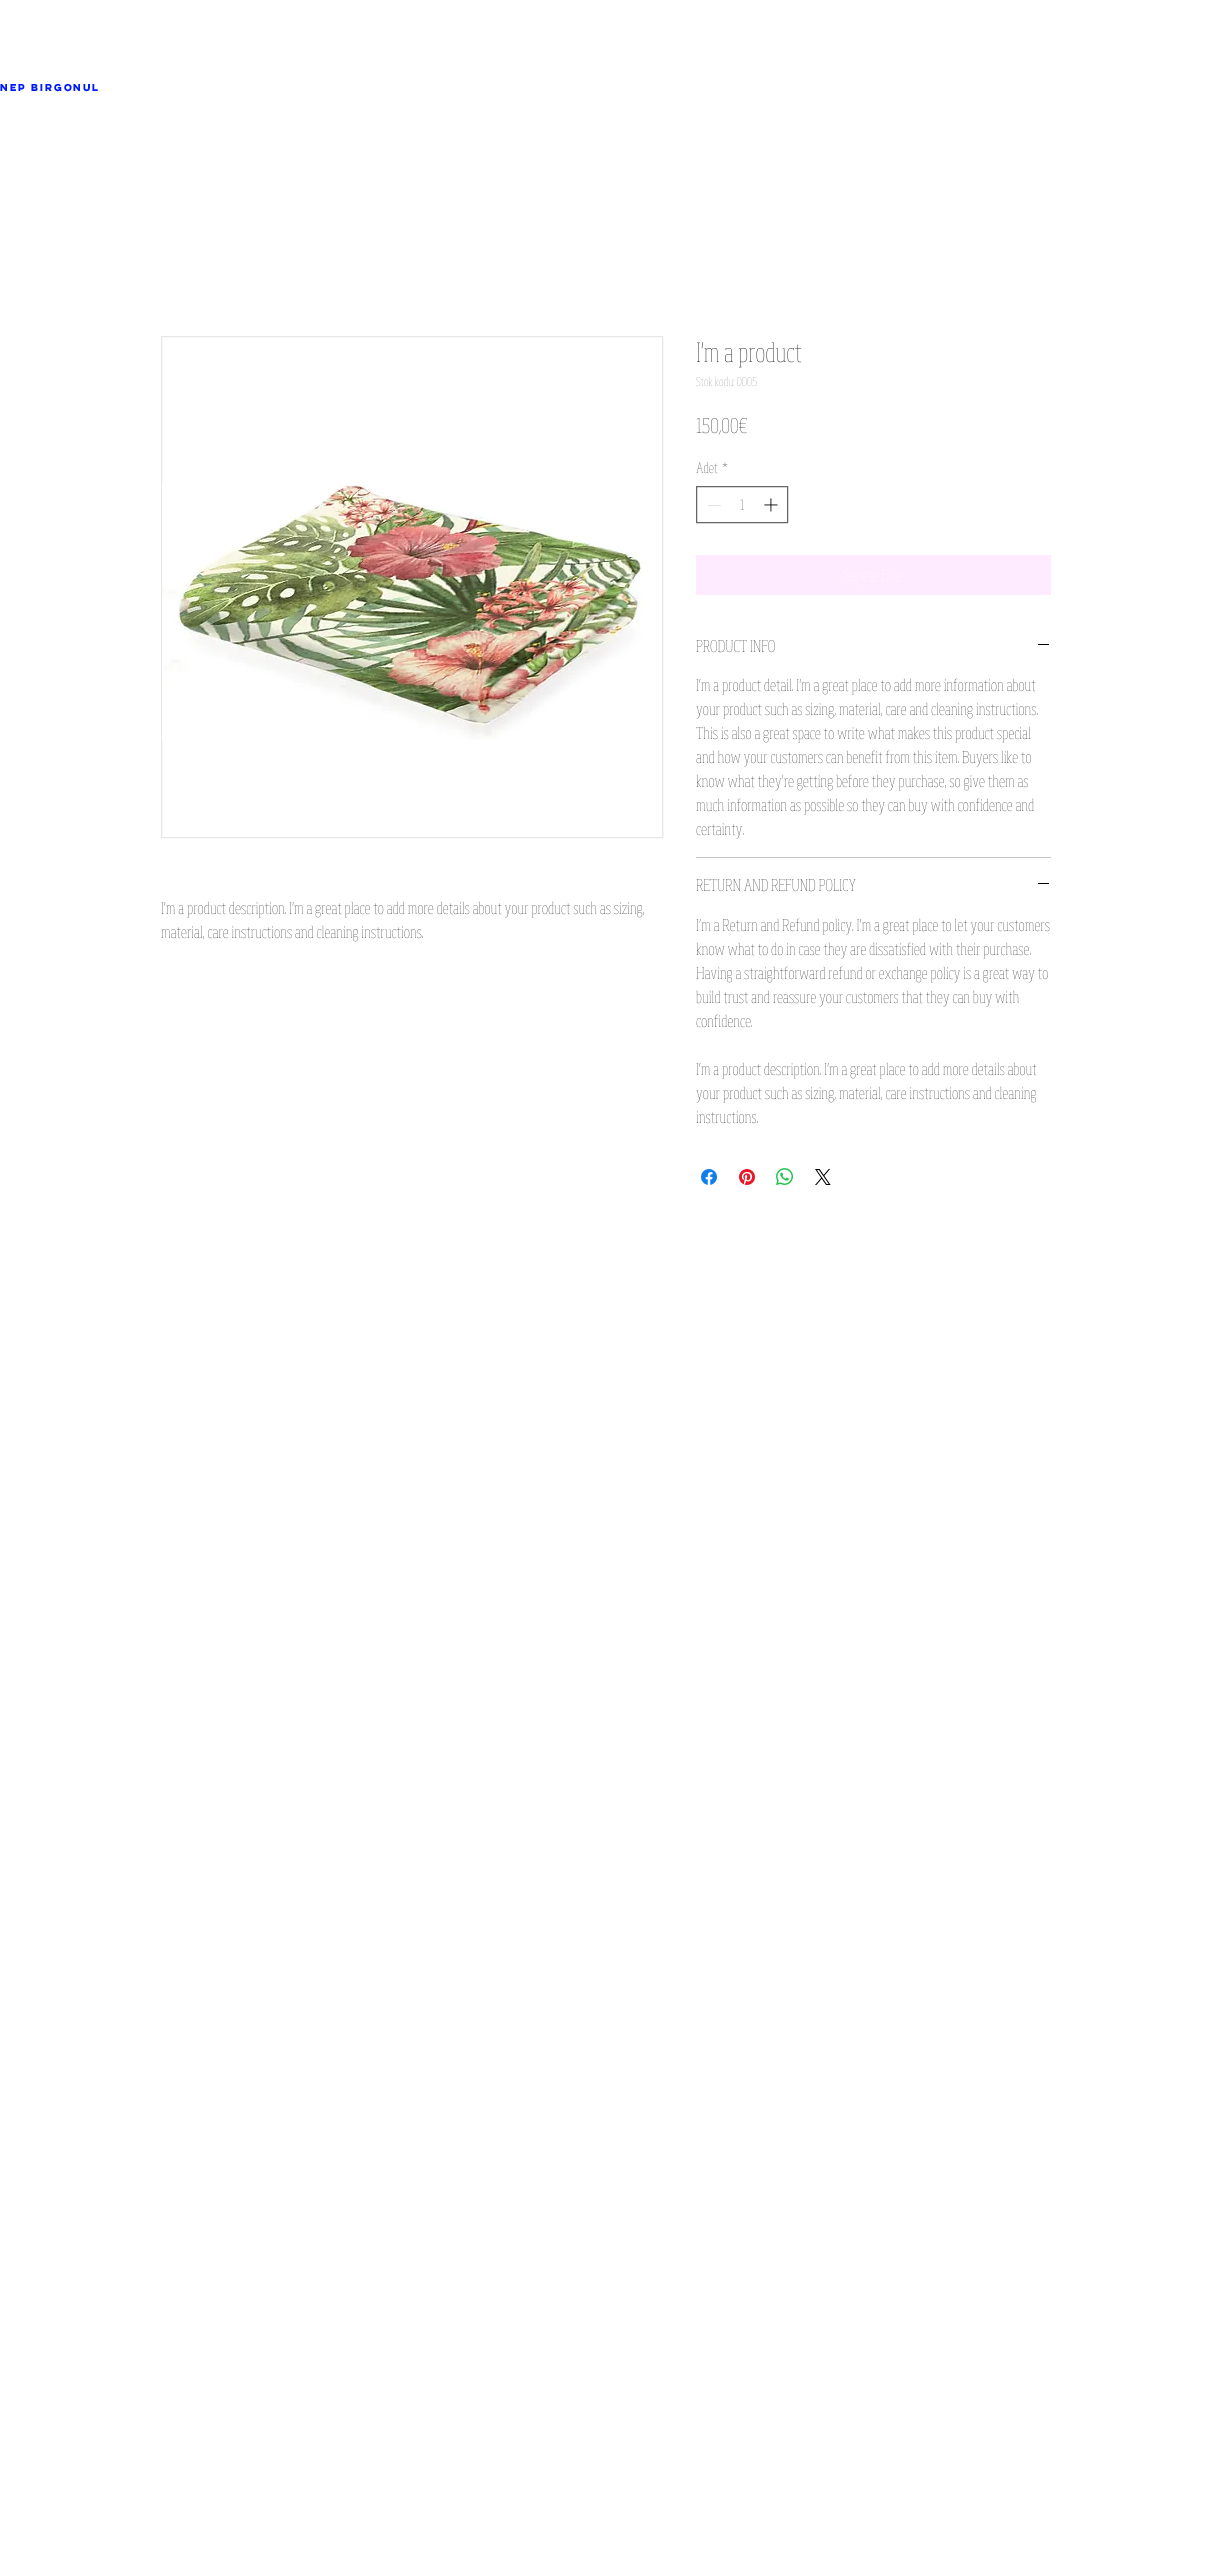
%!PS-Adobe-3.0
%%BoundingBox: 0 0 1212 2574
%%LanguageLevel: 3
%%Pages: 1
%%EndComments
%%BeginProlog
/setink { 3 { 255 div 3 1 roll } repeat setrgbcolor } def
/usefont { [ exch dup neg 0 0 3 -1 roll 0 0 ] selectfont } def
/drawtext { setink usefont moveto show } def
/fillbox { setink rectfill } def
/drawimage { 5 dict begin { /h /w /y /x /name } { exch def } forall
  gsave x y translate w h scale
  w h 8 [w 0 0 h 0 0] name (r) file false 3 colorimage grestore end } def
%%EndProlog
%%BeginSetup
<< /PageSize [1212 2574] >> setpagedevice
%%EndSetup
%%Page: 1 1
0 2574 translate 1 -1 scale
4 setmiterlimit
0 0 1212 2574 255 255 255 fillbox
(nep Birgonul) 0 91 /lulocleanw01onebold-Bold 9 0 26 255 drawtext
232 230 230 setink
161.5 336.5 501 501 rectstroke
(assets/img1.rgb) 162 483 481 257 drawimage
(assets/img2.rgb) 161 901 484 17 drawimage
(assets/img3.rgb) 161 925 262 17 drawimage
(assets/img4.rgb) 697 342 105 26 drawimage
(assets/img5.rgb) 696 376 61 11 drawimage
(assets/img6.rgb) 696 418 51 17 drawimage
(assets/img7.rgb) 696 462 22 12 drawimage
(assets/img8.rgb) 722 462 6 5 drawimage
102 102 102 setink
696.5 486.5 91 36 rectstroke
708 505 13 1 227 227 227 fillbox
(assets/img9.rgb) 740 499 4 11 drawimage
(assets/img10.rgb) 764 498 14 14 drawimage
696 555 355 40 255 235 255 fillbox
(assets/img11.rgb) 844 569 58 16 drawimage
696 857 355 1 199 199 199 fillbox
(assets/img12.rgb) 696 640 79 13 drawimage
1038 644 11 1 0 0 0 fillbox
(assets/img13.rgb) 696 678 340 17 drawimage
(assets/img14.rgb) 696 702 342 17 drawimage
(assets/img15.rgb) 696 726 335 17 drawimage
(assets/img16.rgb) 696 750 335 17 drawimage
(assets/img17.rgb) 696 774 332 17 drawimage
(assets/img18.rgb) 696 798 338 17 drawimage
(assets/img19.rgb) 696 822 48 17 drawimage
(assets/img20.rgb) 696 879 160 13 drawimage
1038 883 11 1 0 0 0 fillbox
(assets/img21.rgb) 696 918 354 17 drawimage
(assets/img22.rgb) 696 942 335 17 drawimage
(assets/img23.rgb) 696 966 352 17 drawimage
(assets/img24.rgb) 696 990 323 17 drawimage
(assets/img25.rgb) 696 1014 56 14 drawimage
(assets/img26.rgb) 696 1062 341 17 drawimage
(assets/img27.rgb) 696 1086 340 17 drawimage
(assets/img28.rgb) 696 1110 62 14 drawimage
(assets/img29.rgb) 701 1169 16 16 drawimage
(assets/img30.rgb) 739 1169 16 16 drawimage
(assets/img31.rgb) 776 1168 17 17 drawimage
(assets/img32.rgb) 815 1169 16 16 drawimage
showpage
%%EOF
